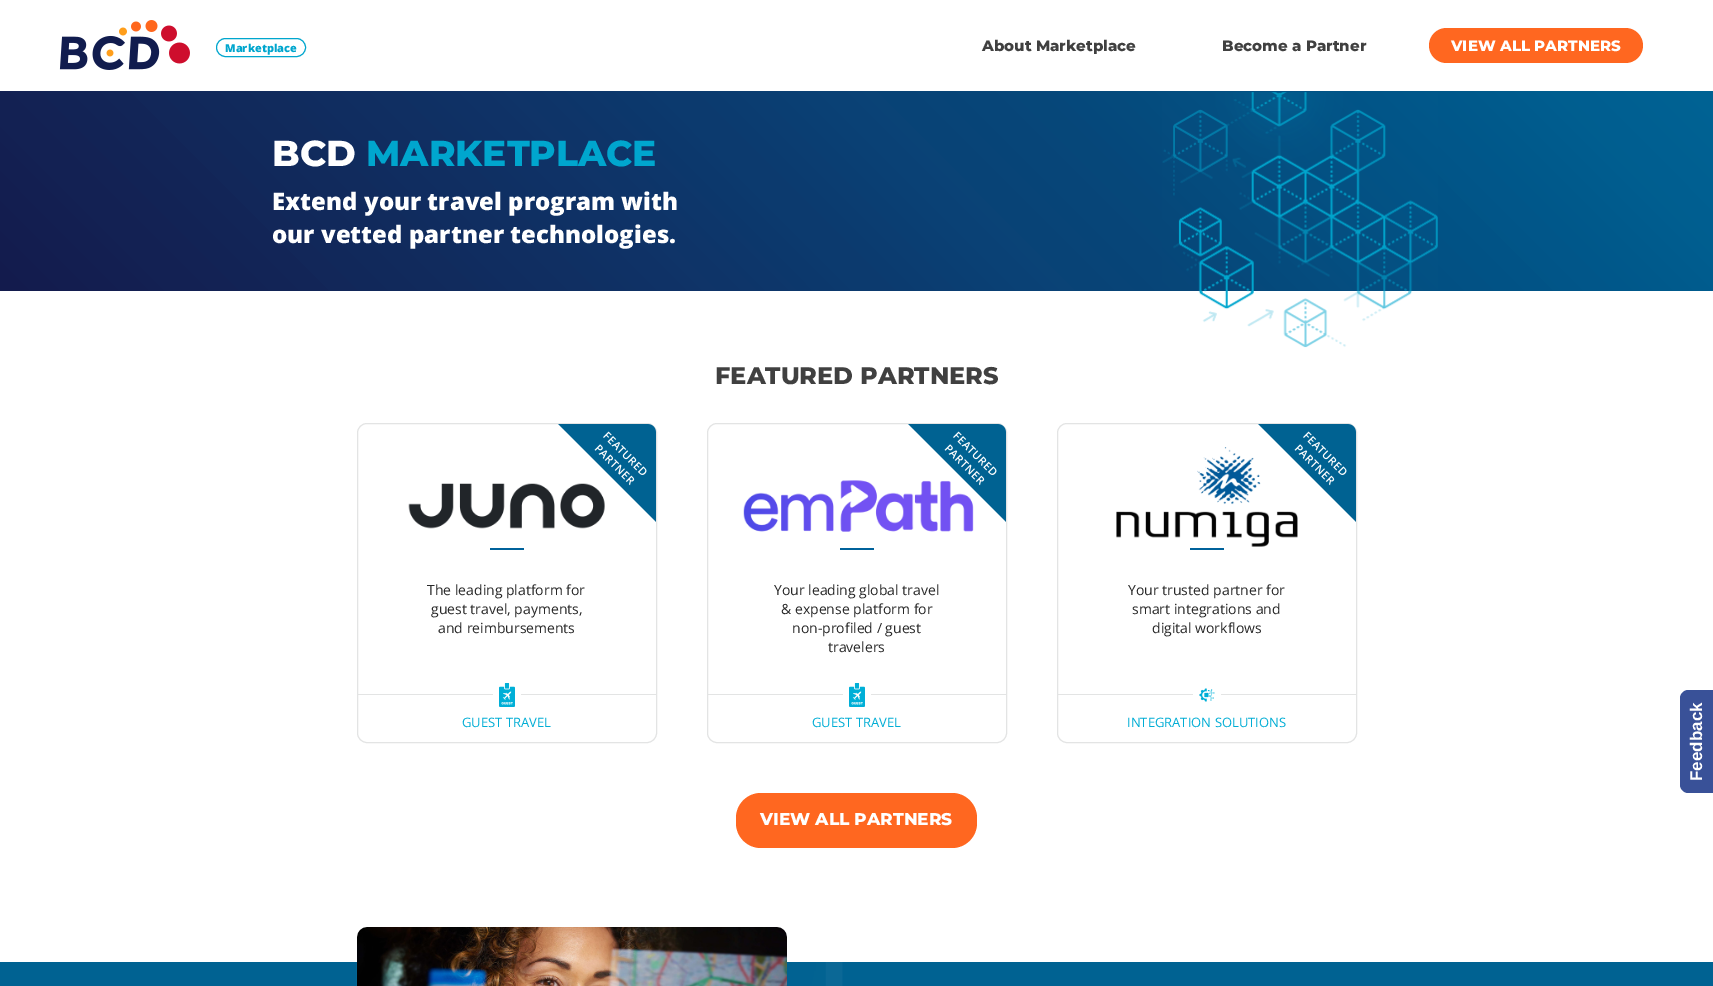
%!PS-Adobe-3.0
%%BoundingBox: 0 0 1713 986
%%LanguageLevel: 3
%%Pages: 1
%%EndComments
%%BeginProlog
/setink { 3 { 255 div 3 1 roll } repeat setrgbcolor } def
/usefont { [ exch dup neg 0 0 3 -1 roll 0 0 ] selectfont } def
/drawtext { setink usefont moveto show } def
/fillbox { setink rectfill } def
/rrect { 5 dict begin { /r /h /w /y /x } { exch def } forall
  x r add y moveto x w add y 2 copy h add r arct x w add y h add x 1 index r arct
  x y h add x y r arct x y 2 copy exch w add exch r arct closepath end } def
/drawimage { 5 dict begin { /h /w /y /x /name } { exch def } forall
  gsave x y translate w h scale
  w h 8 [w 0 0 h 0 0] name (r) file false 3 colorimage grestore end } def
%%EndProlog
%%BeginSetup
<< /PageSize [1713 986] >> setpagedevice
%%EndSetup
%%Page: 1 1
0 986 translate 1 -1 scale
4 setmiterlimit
0 0 1713 986 255 255 255 fillbox
(assets/img1.rgb) 59 20 131 50 drawimage
0 166 206 setink
216.5 38.5 89 18 9 rrect stroke
(Marketplace) 225 52 /OpenSans-ExtraBold 11 0 166 206 drawtext
(About Marketplace) 982 51 /Montserrat-ExtraBold 15 64 64 64 drawtext
(Become a Partner) 1222 51 /Montserrat-ExtraBold 15 64 64 64 drawtext
255 103 32 setink
1429 28 214 35 17.5 rrect fill
(VIEW ALL PARTNERS) 1451 51 /Montserrat-ExtraBold 15 255 255 255 drawtext
gsave 0 91 moveto 1713 91 lineto 1713 291 lineto 0 291 lineto closepath clip newpath
<< /ShadingType 2 /ColorSpace /DeviceRGB /Coords [378 669 1335 -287] /Extend [true true] /Function << /FunctionType 3 /Domain [0 1] /Functions [<< /FunctionType 2 /Domain [0 1] /C0 [0.078 0.106 0.302] /C1 [0.075 0.129 0.325] /N 1 >> << /FunctionType 2 /Domain [0 1] /C0 [0.075 0.129 0.325] /C1 [0.071 0.153 0.349] /N 1 >> << /FunctionType 2 /Domain [0 1] /C0 [0.071 0.153 0.349] /C1 [0.063 0.176 0.376] /N 1 >> << /FunctionType 2 /Domain [0 1] /C0 [0.063 0.176 0.376] /C1 [0.059 0.2 0.404] /N 1 >> << /FunctionType 2 /Domain [0 1] /C0 [0.059 0.2 0.404] /C1 [0.047 0.227 0.431] /N 1 >> << /FunctionType 2 /Domain [0 1] /C0 [0.047 0.227 0.431] /C1 [0.039 0.259 0.463] /N 1 >> << /FunctionType 2 /Domain [0 1] /C0 [0.039 0.259 0.463] /C1 [0.024 0.278 0.475] /N 1 >> << /FunctionType 2 /Domain [0 1] /C0 [0.024 0.278 0.475] /C1 [0.016 0.31 0.506] /N 1 >> << /FunctionType 2 /Domain [0 1] /C0 [0.016 0.31 0.506] /C1 [0.004 0.333 0.533] /N 1 >> << /FunctionType 2 /Domain [0 1] /C0 [0.004 0.333 0.533] /C1 [0 0.365 0.561] /N 1 >> << /FunctionType 2 /Domain [0 1] /C0 [0 0.365 0.561] /C1 [0 0.388 0.58] /N 1 >>] /Bounds [0.09 0.18 0.27 0.36 0.45 0.55 0.64 0.73 0.82 0.91] /Encode [0 1 0 1 0 1 0 1 0 1 0 1 0 1 0 1 0 1 0 1 0 1] >> >> shfill grestore
(BCD) 272 166 /Montserrat-ExtraBold 36 255 255 255 drawtext
(MARKETPLACE) 366 166 /Montserrat-ExtraBold 36 0 166 206 drawtext
(assets/img2.rgb) 1162 92 276 256 drawimage
(Extend your travel program with) 272 210 /OpenSans-ExtraBold 24 255 255 255 drawtext
(our vetted partner technologies.) 272 243 /OpenSans-ExtraBold 24 255 255 255 drawtext
(FEATURED PARTNERS) 715 384 /Montserrat-ExtraBold 24 64 64 64 drawtext
227 228 228 setink
357.5 423.5 299 319 9.5 rrect stroke
(assets/img3.rgb) 408 483 197 46 drawimage
(assets/img4.rgb) 558 424 98 98 drawimage
490 548 34 2 0 98 155 fillbox
(The leading platform for) 427 595 /OpenSans-Regular 14 40 40 40 drawtext
(guest travel, payments,) 431 614 /OpenSans-Regular 14 40 40 40 drawtext
(and reimbursements) 438 633 /OpenSans-Regular 14 40 40 40 drawtext
358 694 298 1 227 228 228 fillbox
493 694 28 1 255 255 255 fillbox
(assets/img5.rgb) 499 683 16 24 drawimage
(GUEST TRAVEL) 462 727 /OpenSans-Regular 13 0 173 213 drawtext
227 228 228 setink
707.5 423.5 299 319 9.5 rrect stroke
(assets/img7.rgb) 743 480 231 52 drawimage
(assets/img6.rgb) 908 424 98 98 drawimage
840 548 34 2 0 98 155 fillbox
(Your leading global travel) 774 595 /OpenSans-Regular 14 40 40 40 drawtext
(& expense platform for) 781 614 /OpenSans-Regular 14 40 40 40 drawtext
(non-profiled / guest) 792 633 /OpenSans-Regular 14 40 40 40 drawtext
(travelers) 828 652 /OpenSans-Regular 14 40 40 40 drawtext
708 694 298 1 227 228 228 fillbox
843 694 28 1 255 255 255 fillbox
(assets/img5.rgb) 849 683 16 24 drawimage
(GUEST TRAVEL) 812 727 /OpenSans-Regular 13 0 173 213 drawtext
227 228 228 setink
1057.5 423.5 299 319 9.5 rrect stroke
(assets/img8.rgb) 1116 447 182 100 drawimage
(assets/img9.rgb) 1258 424 98 98 drawimage
1190 548 34 2 0 98 155 fillbox
(Your trusted partner for) 1128 595 /OpenSans-Regular 14 40 40 40 drawtext
(smart integrations and) 1132 614 /OpenSans-Regular 14 40 40 40 drawtext
(digital workflows) 1152 633 /OpenSans-Regular 14 40 40 40 drawtext
1058 694 298 1 227 228 228 fillbox
1193 694 28 1 255 255 255 fillbox
(assets/img10.rgb) 1199 688 16 14 drawimage
(INTEGRATION SOLUTIONS) 1127 727 /OpenSans-Regular 13 0 173 213 drawtext
255 103 32 setink
736 793 241 55 25 rrect fill
(VIEW ALL PARTNERS) 760 825 /Montserrat-ExtraBold 17 255 255 255 drawtext
0 962 1713 24 0 98 146 fillbox
(assets/img11.rgb) 356 962 487 24 drawimage
(assets/img12.rgb) 357 927 430 59 drawimage
57 81 152 setink
1680 785 moveto 1680 698 lineto 1680 694 1684 690 1688 690 curveto 1713 690 lineto 1713 793 lineto 1688 793 lineto 1684 793 1680 789 1680 785 curveto closepath fill
/LiberationSans-Bold 17 usefont
255 255 255 setink
gsave 1702 781 translate -90 rotate 0 0 moveto (Feedback) show grestore
showpage
%%EOF
